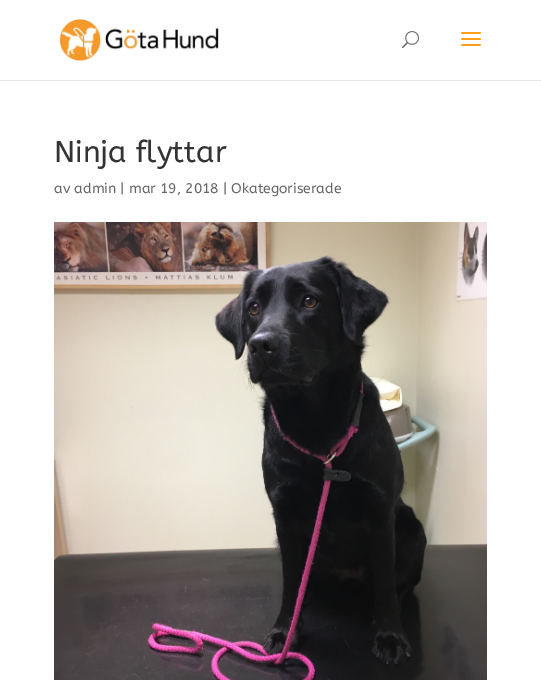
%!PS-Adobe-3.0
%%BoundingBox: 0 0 541 680
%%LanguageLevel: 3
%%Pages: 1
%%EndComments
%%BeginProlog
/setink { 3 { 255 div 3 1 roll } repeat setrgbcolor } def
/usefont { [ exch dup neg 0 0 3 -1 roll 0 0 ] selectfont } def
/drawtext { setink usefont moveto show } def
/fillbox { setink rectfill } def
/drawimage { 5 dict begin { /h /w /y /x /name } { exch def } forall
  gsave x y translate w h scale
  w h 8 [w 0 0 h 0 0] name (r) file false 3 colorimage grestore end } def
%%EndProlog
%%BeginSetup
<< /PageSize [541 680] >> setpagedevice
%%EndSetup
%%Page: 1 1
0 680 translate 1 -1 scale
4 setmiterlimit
0 0 541 680 255 255 255 fillbox
0 80 541 1 230 230 230 fillbox
(assets/img1.rgb) 59 19 160 43 drawimage
(assets/img2.rgb) 402 31 17 18 drawimage
(assets/img3.rgb) 461 32 20 14 drawimage
(Ninja flyttar) 54 162 /ABeeZee-Regular 30 51 51 51 drawtext
(av admin | mar 19, 2018 | Okategoriserade) 54 193 /ABeeZee-Regular 14 102 102 102 drawtext
(assets/img4.rgb) 54 222 433 458 drawimage
showpage
%%EOF
